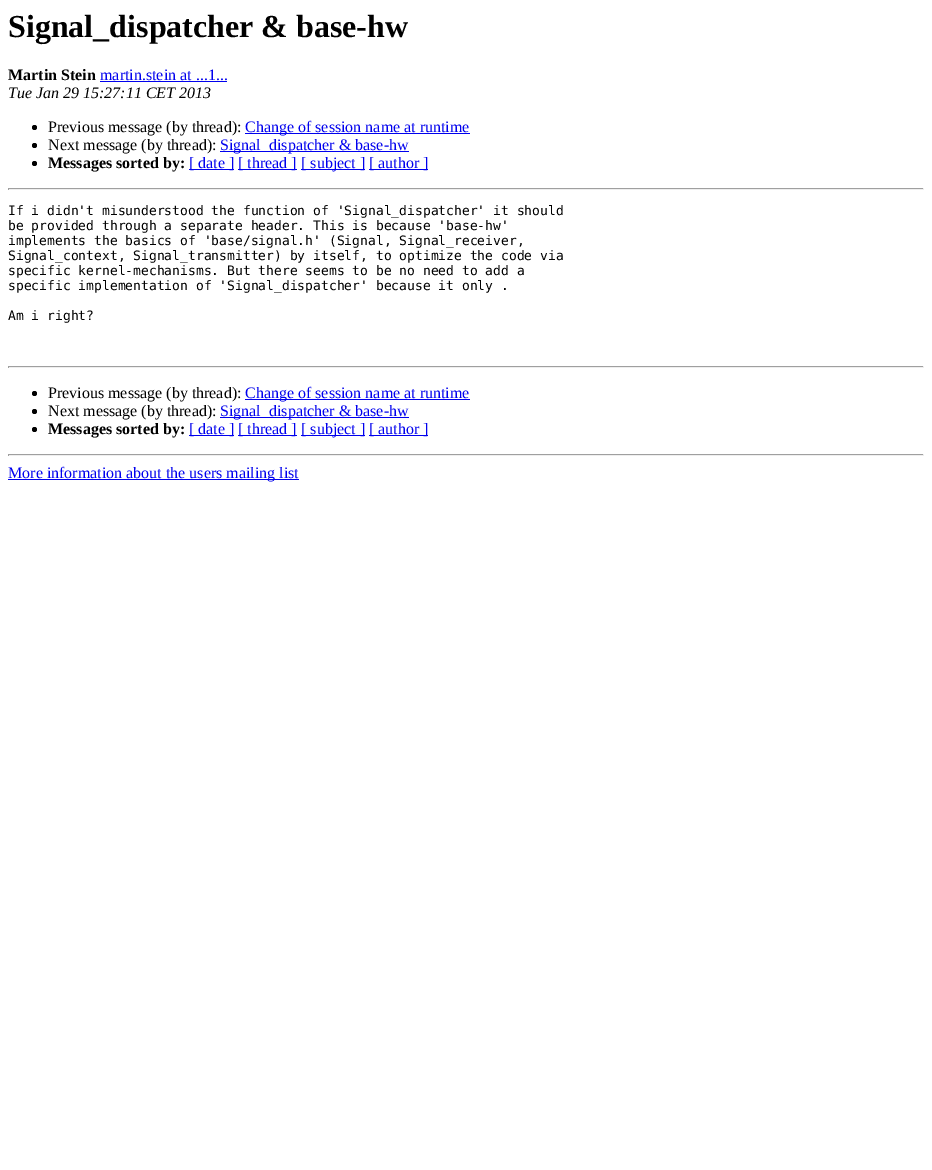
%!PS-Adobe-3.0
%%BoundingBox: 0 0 932 1170
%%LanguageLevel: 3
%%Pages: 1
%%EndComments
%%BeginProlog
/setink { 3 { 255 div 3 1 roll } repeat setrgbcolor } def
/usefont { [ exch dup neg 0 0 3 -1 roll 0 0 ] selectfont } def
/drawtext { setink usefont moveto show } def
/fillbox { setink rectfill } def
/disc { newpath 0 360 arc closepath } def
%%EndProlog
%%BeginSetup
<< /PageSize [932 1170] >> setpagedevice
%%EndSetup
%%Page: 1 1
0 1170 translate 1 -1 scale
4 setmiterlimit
0 0 932 1170 255 255 255 fillbox
(Signal_dispatcher & base-hw) 8 37 /LiberationSerif-Bold 32 0 0 0 drawtext
(Martin Stein) 8 80 /LiberationSerif-Bold 16 0 0 0 drawtext
(martin.stein at ...1...) 100 80 /LiberationSerif-Regular 16 0 0 238 drawtext
100 81 127 1 0 0 238 fillbox
(Tue Jan 29 15:27:11 CET 2013) 8 98 /LiberationSerif-Italic 16 0 0 0 drawtext
34.5 127.5 2.5 disc fill
(Previous message \(by thread\):) 48 132 /LiberationSerif-Regular 16 0 0 0 drawtext
245 133 225 1 0 0 238 fillbox
(Change of session name at runtime) 245 132 /LiberationSerif-Regular 16 0 0 238 drawtext
0 0 0 setink
34.5 145.5 2.5 disc fill
(Next message \(by thread\):) 48 150 /LiberationSerif-Regular 16 0 0 0 drawtext
220 151 189 1 0 0 238 fillbox
(Signal_dispatcher & base-hw) 220 150 /LiberationSerif-Regular 16 0 0 238 drawtext
0 0 0 setink
34.5 163.5 2.5 disc fill
(Messages sorted by:) 48 168 /LiberationSerif-Bold 16 0 0 0 drawtext
189 169 45 1 0 0 238 fillbox
([ date ]) 189 168 /LiberationSerif-Regular 16 0 0 238 drawtext
238 169 59 1 0 0 238 fillbox
([ thread ]) 238 168 /LiberationSerif-Regular 16 0 0 238 drawtext
301 169 64 1 0 0 238 fillbox
([ subject ]) 301 168 /LiberationSerif-Regular 16 0 0 238 drawtext
369 169 59 1 0 0 238 fillbox
([ author ]) 369 168 /LiberationSerif-Regular 16 0 0 238 drawtext
8 188 916 1 159 159 159 fillbox
923 188 1 2 238 238 238 fillbox
8 189 916 1 238 238 238 fillbox
8 188 1 2 159 159 159 fillbox
(If i didn't misunderstood the function of 'Signal_dispatcher' it should) 8 215 /DejaVuSansMono-Regular 13 0 0 0 drawtext
(be provided through a separate header. This is because 'base-hw') 8 230 /DejaVuSansMono-Regular 13 0 0 0 drawtext
(implements the basics of 'base/signal.h' \(Signal, Signal_receiver,) 8 245 /DejaVuSansMono-Regular 13 0 0 0 drawtext
(Signal_context, Signal_transmitter\) by itself, to optimize the code via) 8 260 /DejaVuSansMono-Regular 13 0 0 0 drawtext
(specific kernel-mechanisms. But there seems to be no need to add a) 8 275 /DejaVuSansMono-Regular 13 0 0 0 drawtext
(specific implementation of 'Signal_dispatcher' because it only .) 8 290 /DejaVuSansMono-Regular 13 0 0 0 drawtext
(Am i right?) 8 320 /DejaVuSansMono-Regular 13 0 0 0 drawtext
8 366 916 1 159 159 159 fillbox
923 366 1 2 238 238 238 fillbox
8 367 916 1 238 238 238 fillbox
8 366 1 2 159 159 159 fillbox
0 0 0 setink
34.5 393.5 2.5 disc fill
(Previous message \(by thread\):) 48 398 /LiberationSerif-Regular 16 0 0 0 drawtext
245 399 225 1 0 0 238 fillbox
(Change of session name at runtime) 245 398 /LiberationSerif-Regular 16 0 0 238 drawtext
0 0 0 setink
34.5 411.5 2.5 disc fill
(Next message \(by thread\):) 48 416 /LiberationSerif-Regular 16 0 0 0 drawtext
220 417 189 1 0 0 238 fillbox
(Signal_dispatcher & base-hw) 220 416 /LiberationSerif-Regular 16 0 0 238 drawtext
0 0 0 setink
34.5 429.5 2.5 disc fill
(Messages sorted by:) 48 434 /LiberationSerif-Bold 16 0 0 0 drawtext
189 435 45 1 0 0 238 fillbox
([ date ]) 189 434 /LiberationSerif-Regular 16 0 0 238 drawtext
238 435 59 1 0 0 238 fillbox
([ thread ]) 238 434 /LiberationSerif-Regular 16 0 0 238 drawtext
301 435 64 1 0 0 238 fillbox
([ subject ]) 301 434 /LiberationSerif-Regular 16 0 0 238 drawtext
369 435 59 1 0 0 238 fillbox
([ author ]) 369 434 /LiberationSerif-Regular 16 0 0 238 drawtext
8 454 916 1 159 159 159 fillbox
923 454 1 2 238 238 238 fillbox
8 455 916 1 238 238 238 fillbox
8 454 1 2 159 159 159 fillbox
8 479 291 1 0 0 238 fillbox
(More information about the users mailing list) 8 478 /LiberationSerif-Regular 16 0 0 238 drawtext
showpage
%%EOF
